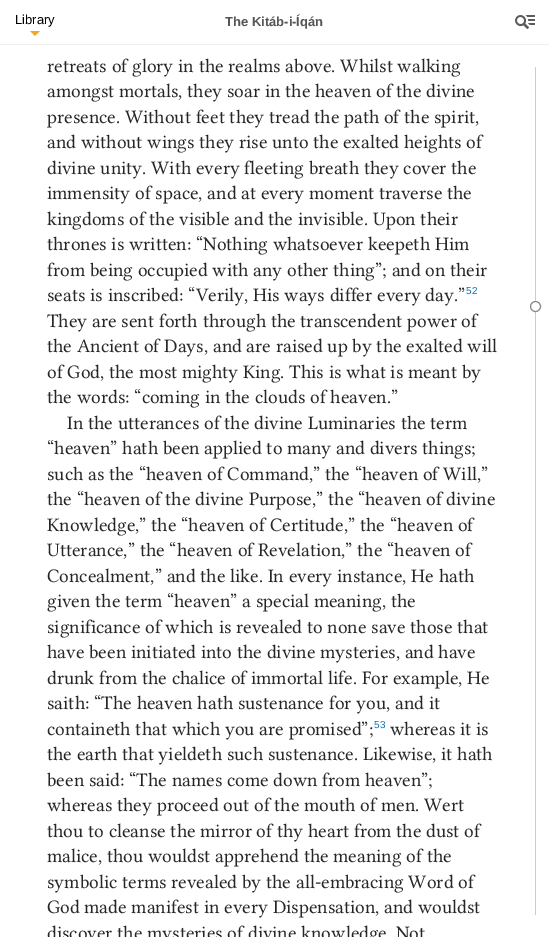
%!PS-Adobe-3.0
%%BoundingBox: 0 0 549 937
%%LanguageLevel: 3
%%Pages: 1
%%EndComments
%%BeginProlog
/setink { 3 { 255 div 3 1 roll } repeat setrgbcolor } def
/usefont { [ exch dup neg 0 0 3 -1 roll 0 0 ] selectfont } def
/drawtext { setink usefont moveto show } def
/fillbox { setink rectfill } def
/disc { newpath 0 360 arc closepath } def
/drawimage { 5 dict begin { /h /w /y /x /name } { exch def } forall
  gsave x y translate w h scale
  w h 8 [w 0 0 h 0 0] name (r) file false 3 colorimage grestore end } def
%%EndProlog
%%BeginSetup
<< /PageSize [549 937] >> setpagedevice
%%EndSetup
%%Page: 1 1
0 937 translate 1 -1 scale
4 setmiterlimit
0 0 549 937 255 255 255 fillbox
0 44 549 1 238 238 238 fillbox
(Library) 15 24 /LiberationSans-Regular 13 0 0 0 drawtext
245 166 35 setink
30 31 moveto 40 31 lineto 35 36 lineto closepath fill
(The Kitáb-i-Íqán) 225 26 /LiberationSans-Bold 13 86 86 86 drawtext
(assets/img1.rgb) 515 15 20 14 drawimage
(retreats of glory in the realms above. Whilst walking) 47 72 /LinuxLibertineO-Regular 17 38 38 38 drawtext
(amongst mortals, they soar in the heaven of the divine) 47 97 /LinuxLibertineO-Regular 17 38 38 38 drawtext
(presence. Without feet they tread the path of the spirit,) 47 123 /LinuxLibertineO-Regular 17 38 38 38 drawtext
(and without wings they rise unto the exalted heights of) 47 148 /LinuxLibertineO-Regular 17 38 38 38 drawtext
(divine unity. With every fleeting breath they cover the) 47 174 /LinuxLibertineO-Regular 17 38 38 38 drawtext
(immensity of space, and at every moment traverse the) 47 199 /LinuxLibertineO-Regular 17 38 38 38 drawtext
(kingdoms of the visible and the invisible. Upon their) 47 225 /LinuxLibertineO-Regular 17 38 38 38 drawtext
(thrones is written: “Nothing whatsoever keepeth Him) 47 250 /LinuxLibertineO-Regular 17 38 38 38 drawtext
(from being occupied with any other thing”; and on their) 47 276 /LinuxLibertineO-Regular 17 38 38 38 drawtext
(seats is inscribed: “Verily, His ways differ every day.”) 47 301 /LinuxLibertineO-Regular 17 38 38 38 drawtext
(52) 466 294 /LiberationSans-Regular 10 5 113 175 drawtext
(They are sent forth through the transcendent power of) 47 327 /LinuxLibertineO-Regular 17 38 38 38 drawtext
(the Ancient of Days, and are raised up by the exalted will) 47 352 /LinuxLibertineO-Regular 17 38 38 38 drawtext
(of God, the most mighty King. This is what is meant by) 47 378 /LinuxLibertineO-Regular 17 38 38 38 drawtext
(the words: “coming in the clouds of heaven.”) 47 403 /LinuxLibertineO-Regular 17 38 38 38 drawtext
(In the utterances of the divine Luminaries the term) 67 429 /LinuxLibertineO-Regular 17 38 38 38 drawtext
(“heaven” hath been applied to many and divers things;) 47 454 /LinuxLibertineO-Regular 17 38 38 38 drawtext
(such as the “heaven of Command,” the “heaven of Will,”) 47 480 /LinuxLibertineO-Regular 17 38 38 38 drawtext
(the “heaven of the divine Purpose,” the “heaven of divine) 47 505 /LinuxLibertineO-Regular 17 38 38 38 drawtext
(Knowledge,” the “heaven of Certitude,” the “heaven of) 47 531 /LinuxLibertineO-Regular 17 38 38 38 drawtext
(Utterance,” the “heaven of Revelation,” the “heaven of) 47 556 /LinuxLibertineO-Regular 17 38 38 38 drawtext
(Concealment,” and the like. In every instance, He hath) 47 582 /LinuxLibertineO-Regular 17 38 38 38 drawtext
(given the term “heaven” a special meaning, the) 47 607 /LinuxLibertineO-Regular 17 38 38 38 drawtext
(significance of which is revealed to none save those that) 47 633 /LinuxLibertineO-Regular 17 38 38 38 drawtext
(have been initiated into the divine mysteries, and have) 47 658 /LinuxLibertineO-Regular 17 38 38 38 drawtext
(drunk from the chalice of immortal life. For example, He) 47 684 /LinuxLibertineO-Regular 17 38 38 38 drawtext
(saith: “The heaven hath sustenance for you, and it) 47 709 /LinuxLibertineO-Regular 17 38 38 38 drawtext
(containeth that which you are promised”;) 47 735 /LinuxLibertineO-Regular 17 38 38 38 drawtext
(53) 374 728 /LiberationSans-Regular 10 5 113 175 drawtext
(whereas it is) 390 735 /LinuxLibertineO-Regular 17 38 38 38 drawtext
(the earth that yieldeth such sustenance. Likewise, it hath) 47 760 /LinuxLibertineO-Regular 17 38 38 38 drawtext
(been said: “The names come down from heaven”;) 47 786 /LinuxLibertineO-Regular 17 38 38 38 drawtext
(whereas they proceed out of the mouth of men. Wert) 47 811 /LinuxLibertineO-Regular 17 38 38 38 drawtext
(thou to cleanse the mirror of thy heart from the dust of) 47 837 /LinuxLibertineO-Regular 17 38 38 38 drawtext
(malice, thou wouldst apprehend the meaning of the) 47 862 /LinuxLibertineO-Regular 17 38 38 38 drawtext
(symbolic terms revealed by the all-embracing Word of) 47 888 /LinuxLibertineO-Regular 17 38 38 38 drawtext
(God made manifest in every Dispensation, and wouldst) 47 913 /LinuxLibertineO-Regular 17 38 38 38 drawtext
(discover the mysteries of divine knowledge. Not) 47 939 /LinuxLibertineO-Regular 17 38 38 38 drawtext
535 67 1 848 204 204 204 fillbox
255 255 255 setink
535.5 306.5 5 disc gsave fill grestore
136 136 136 setink
stroke
showpage
%%EOF
